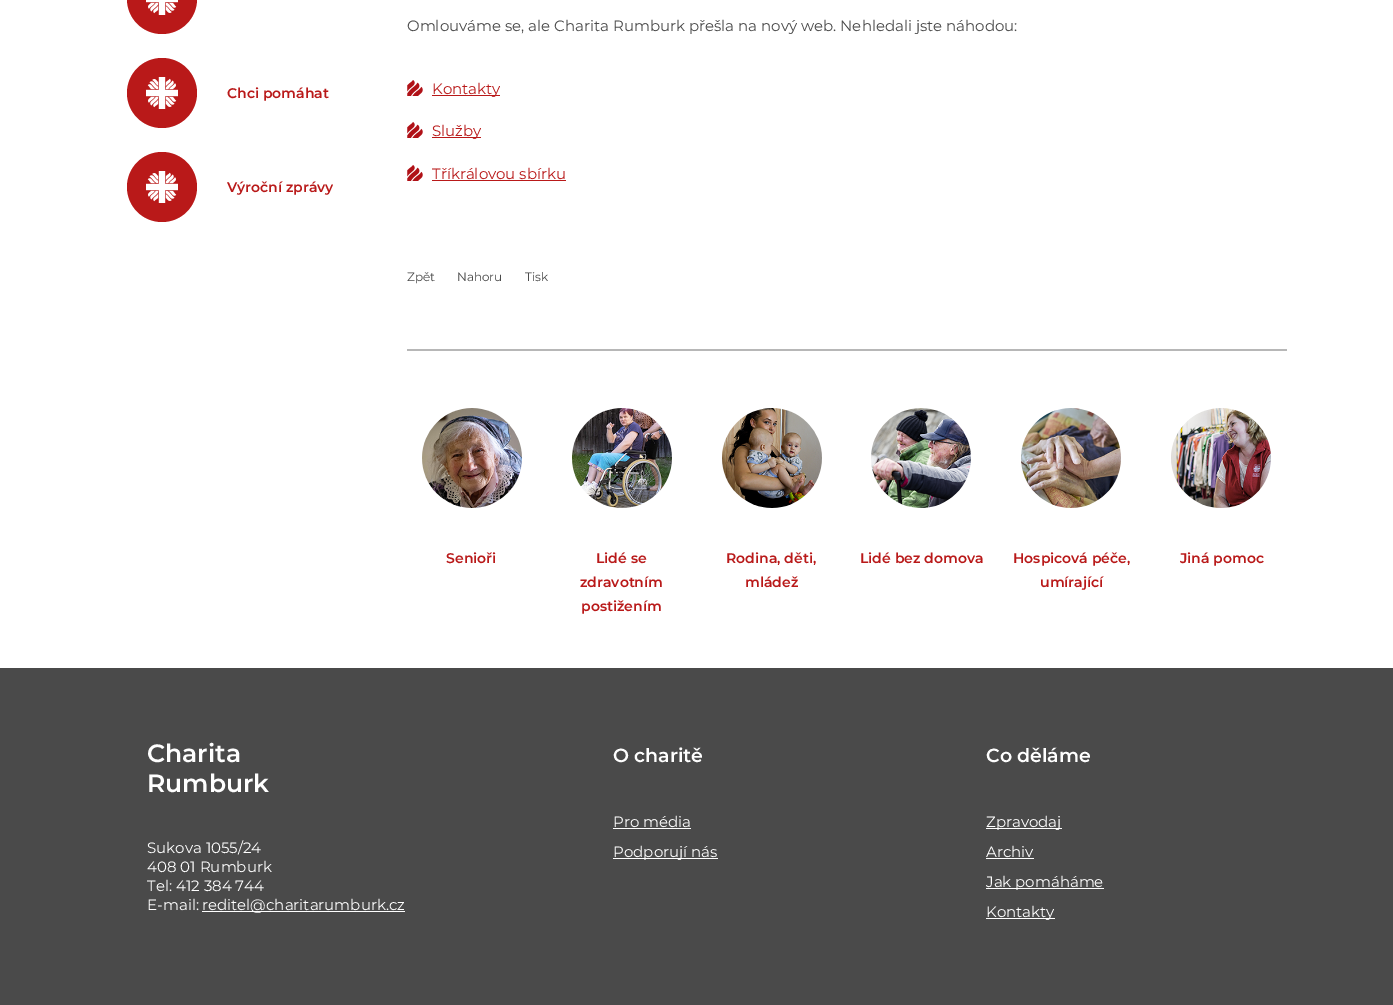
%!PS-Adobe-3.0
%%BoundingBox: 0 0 1393 1005
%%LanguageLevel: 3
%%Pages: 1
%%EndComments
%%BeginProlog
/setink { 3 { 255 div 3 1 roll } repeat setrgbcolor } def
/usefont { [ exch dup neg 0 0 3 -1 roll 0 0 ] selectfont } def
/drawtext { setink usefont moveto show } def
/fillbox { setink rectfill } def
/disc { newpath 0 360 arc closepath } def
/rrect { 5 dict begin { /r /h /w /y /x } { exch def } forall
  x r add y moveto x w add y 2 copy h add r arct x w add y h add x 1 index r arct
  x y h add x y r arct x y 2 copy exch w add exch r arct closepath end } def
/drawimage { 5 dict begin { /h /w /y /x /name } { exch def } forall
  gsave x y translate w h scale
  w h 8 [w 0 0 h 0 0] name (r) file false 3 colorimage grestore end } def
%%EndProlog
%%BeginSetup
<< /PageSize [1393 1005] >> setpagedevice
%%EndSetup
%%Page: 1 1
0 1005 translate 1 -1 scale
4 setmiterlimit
0 0 1393 1005 255 255 255 fillbox
185 25 25 setink
127 -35 70 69 35 rrect fill
(assets/img1.rgb) 146 0 32 15 drawimage
162 93 35 disc fill
(assets/img2.rgb) 146 77 32 32 drawimage
(Chci pomáhat) 227 98 /Montserrat-SemiBold 14 185 25 25 drawtext
162 187 35 disc fill
(assets/img2.rgb) 146 171 32 32 drawimage
(Výroční zprávy) 227 192 /Montserrat-SemiBold 14 185 25 25 drawtext
(Omlouváme se, ale Charita Rumburk přešla na nový web. Nehledali jste náhodou:) 407 31 /Montserrat-Regular 15 74 74 74 drawtext
(assets/img3.rgb) 407 80 16 16 drawimage
432 95 68 1 185 25 25 fillbox
(Kontakty) 432 94 /Montserrat-Regular 15 185 25 25 drawtext
(assets/img3.rgb) 407 122 16 16 drawimage
432 137 49 1 185 25 25 fillbox
(Služby) 432 136 /Montserrat-Regular 15 185 25 25 drawtext
(assets/img3.rgb) 407 165 16 16 drawimage
(Tříkrálovou sbírku) 432 179 /Montserrat-Regular 15 185 25 25 drawtext
432 180 134 1 185 25 25 fillbox
(Zpět) 407 281 /Montserrat-Regular 12 74 74 74 drawtext
(Nahoru) 457 281 /Montserrat-Regular 12 74 74 74 drawtext
(Tisk) 525 281 /Montserrat-Regular 12 74 74 74 drawtext
407 349 880 2 183 183 183 fillbox
(assets/img4.rgb) 422 408 100 100 drawimage
(Senioři) 446 563 /Montserrat-SemiBold 14 185 25 25 drawtext
(assets/img5.rgb) 572 408 100 100 drawimage
(Lidé se) 596 563 /Montserrat-SemiBold 14 185 25 25 drawtext
(zdravotním) 580 587 /Montserrat-SemiBold 14 185 25 25 drawtext
(postižením) 581 611 /Montserrat-SemiBold 14 185 25 25 drawtext
(assets/img6.rgb) 722 408 100 100 drawimage
(Rodina, děti,) 726 563 /Montserrat-SemiBold 14 185 25 25 drawtext
(mládež) 745 587 /Montserrat-SemiBold 14 185 25 25 drawtext
(assets/img7.rgb) 871 408 100 100 drawimage
(Lidé bez domova) 860 563 /Montserrat-SemiBold 14 185 25 25 drawtext
(assets/img8.rgb) 1021 408 100 100 drawimage
(Hospicová péče,) 1013 563 /Montserrat-SemiBold 14 185 25 25 drawtext
(umírající) 1040 587 /Montserrat-SemiBold 14 185 25 25 drawtext
(assets/img9.rgb) 1171 408 100 100 drawimage
(Jiná pomoc) 1180 563 /Montserrat-SemiBold 14 185 25 25 drawtext
0 668 1393 337 74 74 74 fillbox
(Charita) 147 762 /Montserrat-SemiBold 25 255 255 255 drawtext
(Rumburk) 147 792 /Montserrat-SemiBold 25 255 255 255 drawtext
(Sukova 1055/24) 147 853 /Montserrat-Regular 15 255 255 255 drawtext
(408 01 Rumburk) 147 872 /Montserrat-Regular 15 255 255 255 drawtext
(Tel: 412 384 744) 147 891 /Montserrat-Regular 15 255 255 255 drawtext
(E-mail:) 147 910 /Montserrat-Regular 15 255 255 255 drawtext
202 911 203 1 255 255 255 fillbox
(reditel@charitarumburk.cz) 202 910 /Montserrat-Regular 15 255 255 255 drawtext
(O charitě) 613 762 /Montserrat-SemiBold 19 255 255 255 drawtext
(Pro média) 613 827 /Montserrat-Regular 15 255 255 255 drawtext
613 828 78 1 255 255 255 fillbox
613 858 105 1 255 255 255 fillbox
(Podporují nás) 613 857 /Montserrat-Regular 15 255 255 255 drawtext
(Co děláme) 986 762 /Montserrat-SemiBold 19 255 255 255 drawtext
986 828 76 1 255 255 255 fillbox
(Zpravodaj) 986 827 /Montserrat-Regular 15 255 255 255 drawtext
(Archiv) 986 857 /Montserrat-Regular 15 255 255 255 drawtext
986 858 48 1 255 255 255 fillbox
986 888 118 1 255 255 255 fillbox
(Jak pomáháme) 986 887 /Montserrat-Regular 15 255 255 255 drawtext
986 918 69 1 255 255 255 fillbox
(Kontakty) 986 917 /Montserrat-Regular 15 255 255 255 drawtext
showpage
%%EOF
